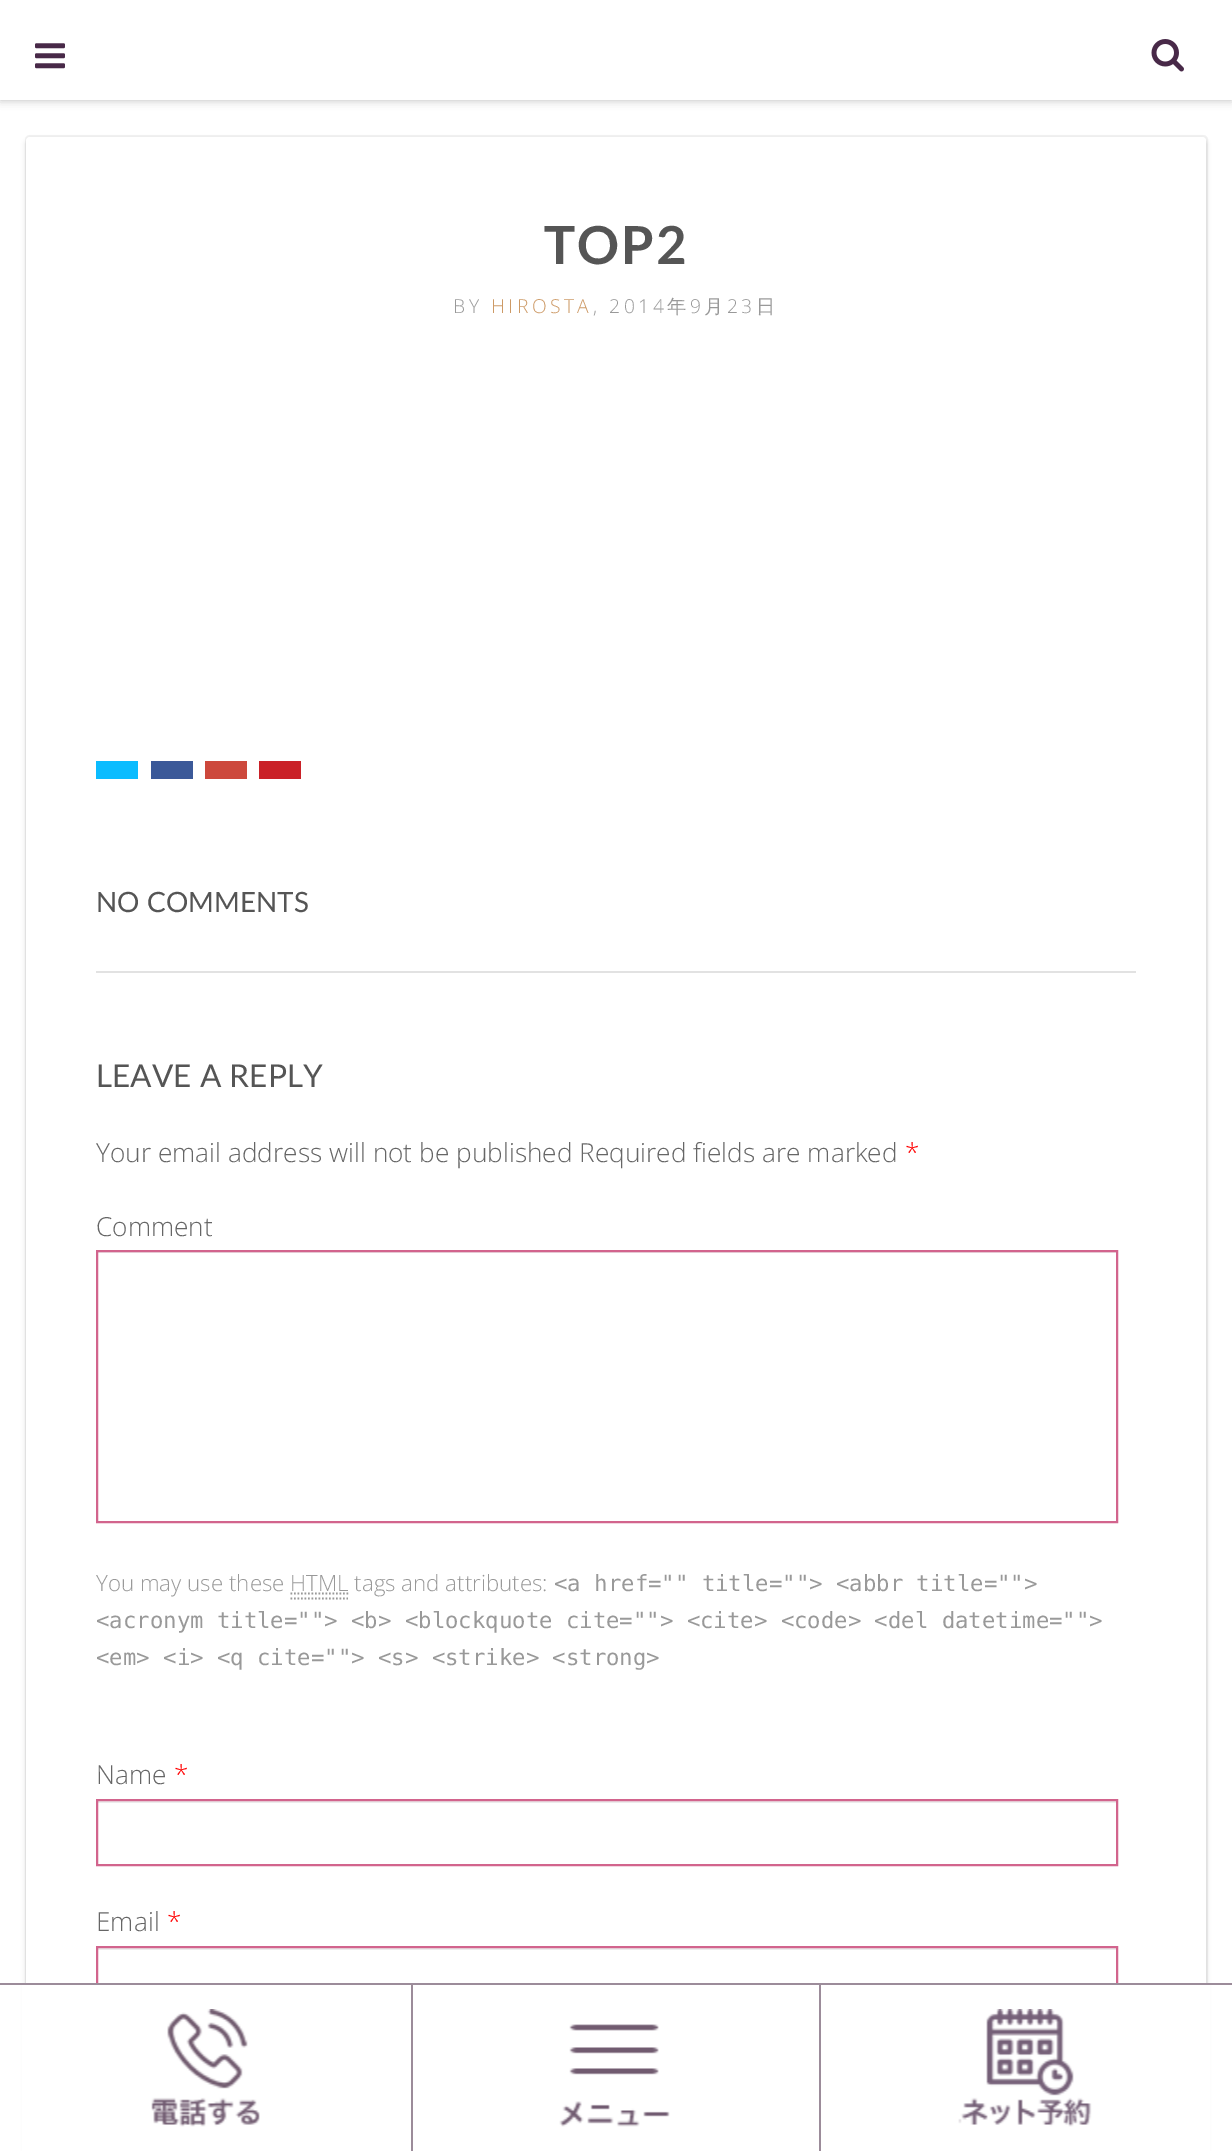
%!PS-Adobe-3.0
%%BoundingBox: 0 0 1232 2151
%%LanguageLevel: 3
%%Pages: 1
%%EndComments
%%BeginProlog
/setink { 3 { 255 div 3 1 roll } repeat setrgbcolor } def
/usefont { [ exch dup neg 0 0 3 -1 roll 0 0 ] selectfont } def
/drawtext { setink usefont moveto show } def
/fillbox { setink rectfill } def
/setalpha { dup .setfillconstantalpha .setstrokeconstantalpha } def
/rrect { 5 dict begin { /r /h /w /y /x } { exch def } forall
  x r add y moveto x w add y 2 copy h add r arct x w add y h add x 1 index r arct
  x y h add x y r arct x y 2 copy exch w add exch r arct closepath end } def
/softshadow { 12 dict begin { /a /b /q /h /w /y /x } { exch def } forall gsave /was 0 def
  9 -2 -9 { dup b mul 4 div /e exch def 1 sub .425 mul 2.718 exch exp 1 add a .99 .min exch div /now exch def
    1 1 now sub 1 was sub div sub setalpha /was now def
    w h .min e 2 mul add 0 gt { x e sub y e sub w e 2 mul add h e 2 mul add
      q e add b .6 mul add w h .min 2 div e add .min 0 .max rrect fill } if } for grestore end } def
/drawimage { 5 dict begin { /h /w /y /x /name } { exch def } forall
  gsave x y translate w h scale
  w h 8 [w 0 0 h 0 0] name (r) file false 3 colorimage grestore end } def
%%EndProlog
%%BeginSetup
<< /PageSize [1232 2151] /PageUsesTransparency true >> setpagedevice
%%EndSetup
%%Page: 1 1
0 .pushpdf14devicefilter
0 2151 translate 1 -1 scale
4 setmiterlimit
0 0 1232 2151 255 255 255 fillbox
0 0 0 setink
0 0 1232 100 0 4.5 0.25 softshadow
0 0 1232 100 255 255 255 fillbox
(assets/img1.rgb) 35 43 30 26 drawimage
(assets/img2.rgb) 1151 39 33 33 drawimage
242 242 242 setink
2 setlinewidth
26 136 1181 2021 4 rrect stroke
0 0 0 setink
26 140 1180 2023 4 2.5 0.15 softshadow
255 255 255 setink
26 137 1180 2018 4 rrect fill
/Lato-Bold 52.5 usefont
85 85 85 setink
544 264 moveto 2 0 (TOP2) ashow
/OpenSans-Light 19.25 usefont
153 153 153 setink
453 313 moveto 3.5 0 (BY) ashow
205 154 102 setink
491 313 moveto 3.5 0 (HIROSTA) ashow
153 153 153 setink
593 313 moveto 3.5 0 (, 2014) ashow
/WenQuanYiZenHei-Medium 19.25 usefont
667 313 moveto 3.5 0 (年) ashow
/OpenSans-Light 19.25 usefont
690 313 moveto 3.5 0 (9) ashow
/WenQuanYiZenHei-Medium 19.25 usefont
704 313 moveto 3.5 0 (月) ashow
/OpenSans-Light 19.25 usefont
727 313 moveto 3.5 0 (23) ashow
/WenQuanYiZenHei-Medium 19.25 usefont
756 313 moveto 3.5 0 (日) ashow
96 761 42 18 11 188 255 fillbox
151 761 42 18 59 89 153 fillbox
205 761 42 18 205 72 60 fillbox
259 761 42 18 202 33 40 fillbox
/Lato-Regular 28 usefont
85 85 85 setink
96 912 moveto 2 0 32 (NO COMMENTS) widthshow
96 971 1040 2 226 226 226 fillbox
/Lato-Regular 31.5 usefont
85 85 85 setink
96 1087 moveto 2 0 32 (LEAVE A REPLY) widthshow
(Your email address will not be published Required fields are marked) 96 1162 /OpenSans-Light 26.25 102 102 102 drawtext
(*) 905 1162 /OpenSans-Light 26.25 255 0 0 drawtext
(Comment) 96 1236 /OpenSans-Light 26.25 102 102 102 drawtext
98 1252 1019 1 236 236 236 fillbox
210 100 141 setink
97 1251 1020 271 rectstroke
(You may use these HTML tags and attributes:) 96 1591 /OpenSans-Light 22.3 153 153 153 drawtext
(<a href="" title=""> <abbr title="">) 554 1591 /DejaVuSansMono-Regular 22.3 153 153 153 drawtext
1.8 setlinewidth
[1.75 1.75] 0 setdash
290.5 1598.5 moveto 348 1598.5 lineto 290.5 1593.5 moveto 349 1593.5 lineto stroke
(<acronym title=""> <b> <blockquote cite=""> <cite> <code> <del datetime="">) 96 1628 /DejaVuSansMono-Regular 22.3 153 153 153 drawtext
(<em> <i> <q cite=""> <s> <strike> <strong>) 96 1665 /DejaVuSansMono-Regular 22.3 153 153 153 drawtext
(Name) 96 1784 /OpenSans-Light 26.25 102 102 102 drawtext
(*) 174 1784 /OpenSans-Light 26.25 255 0 0 drawtext
98 1801 1019 2 236 236 236 fillbox
210 100 141 setink
2 setlinewidth
[] 0 setdash
97 1800 1020 65 rectstroke
(Email) 96 1931 /OpenSans-Light 26.25 102 102 102 drawtext
(*) 167 1931 /OpenSans-Light 26.25 255 0 0 drawtext
98 1948 1019 2 236 236 236 fillbox
210 100 141 setink
97 1947 1020 65 rectstroke
22 1985 1188 166 255 255 255 fillbox
0 1983 1232 2 156 140 154 fillbox
(assets/img3.rgb) 151 2009 109 118 drawimage
819 1985 2 166 156 140 154 fillbox
411 1985 2 166 156 140 154 fillbox
(assets/img4.rgb) 559 2024 111 103 drawimage
(assets/img5.rgb) 958 2009 134 118 drawimage
.poppdf14devicefilter showpage
%%EOF
